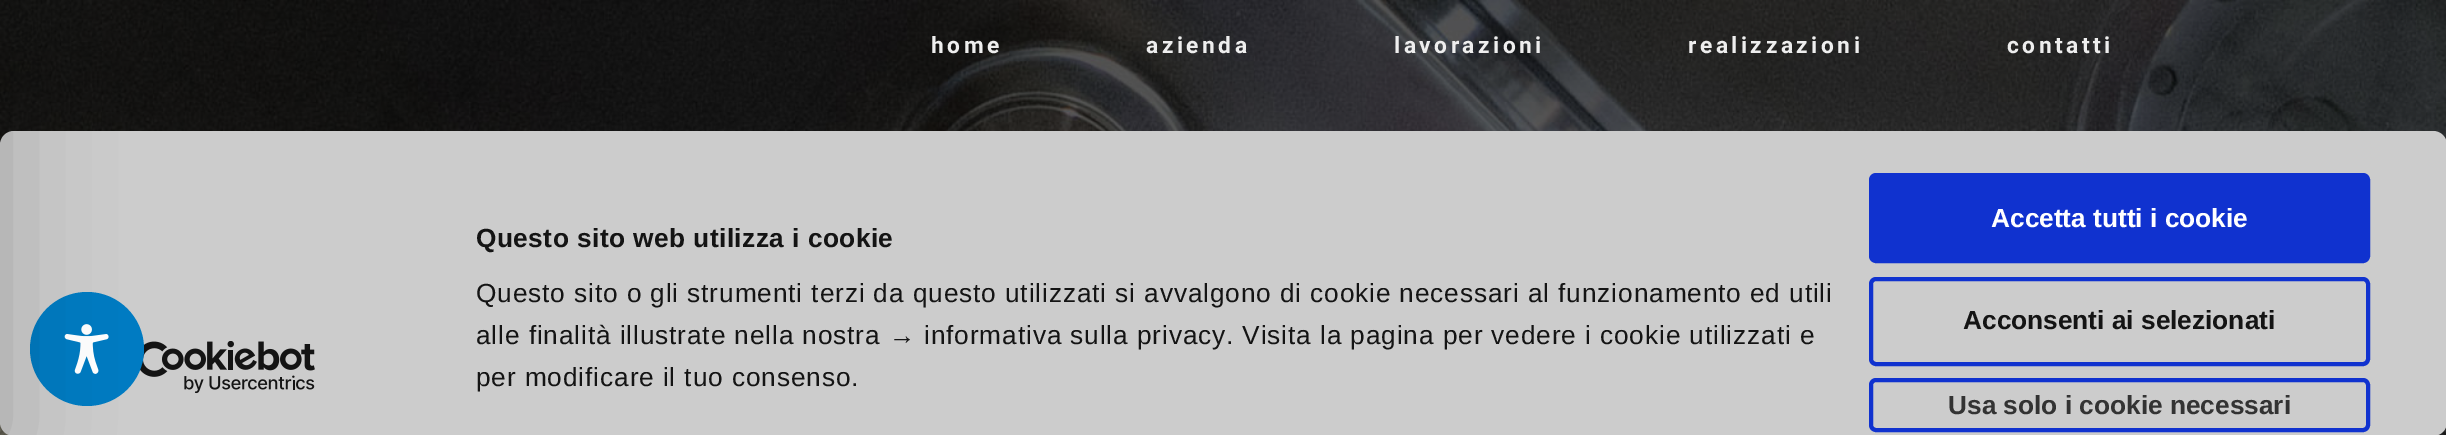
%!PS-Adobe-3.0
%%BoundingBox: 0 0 2446 435
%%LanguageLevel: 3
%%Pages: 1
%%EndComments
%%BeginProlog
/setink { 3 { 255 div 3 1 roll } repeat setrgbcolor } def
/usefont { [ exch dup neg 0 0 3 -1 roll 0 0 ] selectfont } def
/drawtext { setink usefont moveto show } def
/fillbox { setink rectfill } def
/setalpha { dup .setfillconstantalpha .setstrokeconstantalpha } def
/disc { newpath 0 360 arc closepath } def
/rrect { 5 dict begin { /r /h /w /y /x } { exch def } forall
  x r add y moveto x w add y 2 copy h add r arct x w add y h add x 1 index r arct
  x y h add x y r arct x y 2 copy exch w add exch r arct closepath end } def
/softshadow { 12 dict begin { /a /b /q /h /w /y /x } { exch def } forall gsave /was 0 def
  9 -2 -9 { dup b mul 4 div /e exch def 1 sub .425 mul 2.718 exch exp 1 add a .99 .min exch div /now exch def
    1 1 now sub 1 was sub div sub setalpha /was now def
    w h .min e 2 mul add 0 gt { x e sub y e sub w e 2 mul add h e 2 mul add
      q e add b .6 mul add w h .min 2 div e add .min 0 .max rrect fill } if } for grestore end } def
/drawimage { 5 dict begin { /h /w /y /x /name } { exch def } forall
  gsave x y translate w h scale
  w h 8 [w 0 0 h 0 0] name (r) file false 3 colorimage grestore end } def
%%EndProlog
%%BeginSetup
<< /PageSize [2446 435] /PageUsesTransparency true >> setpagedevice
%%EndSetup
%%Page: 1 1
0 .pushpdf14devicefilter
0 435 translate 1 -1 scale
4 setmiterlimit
0 0 2446 435 255 255 255 fillbox
(assets/img1.rgb) 0 0 2446 435 drawimage
0.4 setalpha
0 0 2446 145 0 0 0 fillbox
1 setalpha
204 204 204 setink
0 131 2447 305 14 rrect fill
(assets/img3.rgb) 140 341 175 53 drawimage
0 123 194 setink
87 349 57 disc fill
(assets/img2.rgb) 64 324 45 50 drawimage
0 0 0 setink
-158 18 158 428 0 52.5 0.2 softshadow
/Heebo-Bold 22.75 usefont
238 238 238 setink
931 53 moveto 3.5 0 (home) ashow
1146 53 moveto 3.5 0 (azienda) ashow
1394 53 moveto 3.5 0 (lavorazioni) ashow
1688 53 moveto 3.5 0 (realizzazioni) ashow
2007 53 moveto 3.5 0 (contatti) ashow
/LiberationSans-Bold 26.25 usefont
20 20 20 setink
476 247 moveto 0.45 0 (Questo sito web utilizza i cookie) ashow
/LiberationSans-Regular 26.25 usefont
476 302 moveto 0.88 0 (Questo sito o gli strumenti terzi da questo utilizzati si avvalgono di cookie necessari al funzionamento ed utili) ashow
476 344 moveto 0.88 0 (alle finalità illustrate nella nostra → informativa sulla privacy. Visita la pagina per vedere i cookie utilizzati e) ashow
476 386 moveto 0.88 0 (per modificare il tuo consenso.) ashow
16 50 207 setink
1871 175 497 86 5 rrect gsave fill grestore
4 setlinewidth
stroke
(Accetta tutti i cookie) 1991 227 /LiberationSans-Bold 26.25 255 255 255 drawtext
16 50 207 setink
1871 279 497 85 5 rrect stroke
(Acconsenti ai selezionati) 1963 329 /LiberationSans-Bold 26.25 20 20 20 drawtext
16 50 207 setink
1871 380 497 50 5 rrect stroke
(Usa solo i cookie necessari) 1948 414 /LiberationSans-Bold 26.25 51 51 51 drawtext
.poppdf14devicefilter showpage
%%EOF
